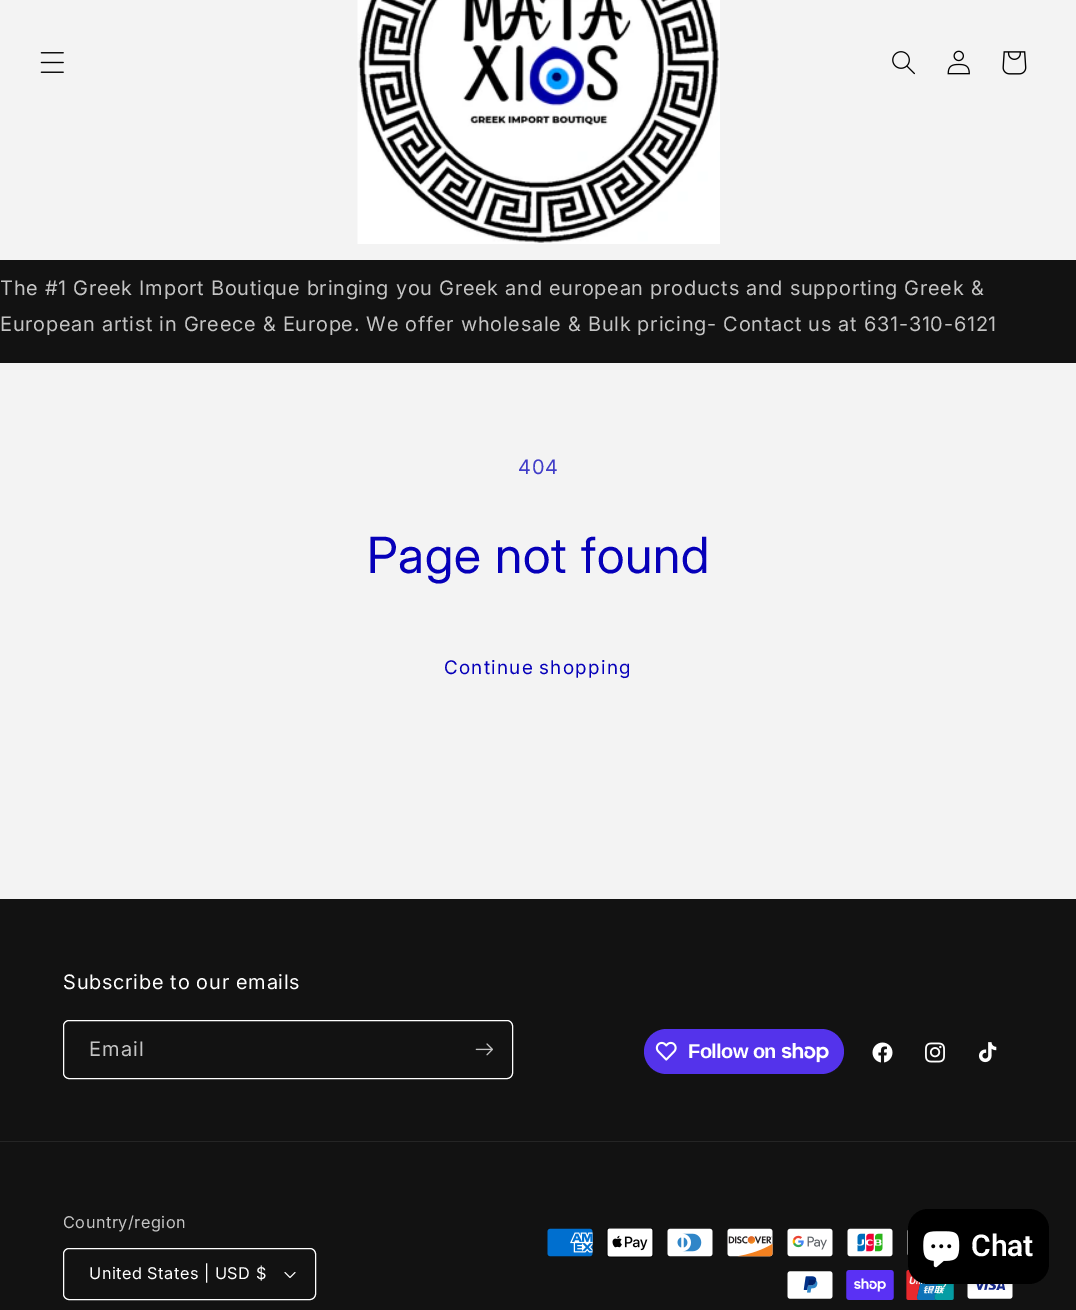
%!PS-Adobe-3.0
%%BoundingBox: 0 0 1076 1310
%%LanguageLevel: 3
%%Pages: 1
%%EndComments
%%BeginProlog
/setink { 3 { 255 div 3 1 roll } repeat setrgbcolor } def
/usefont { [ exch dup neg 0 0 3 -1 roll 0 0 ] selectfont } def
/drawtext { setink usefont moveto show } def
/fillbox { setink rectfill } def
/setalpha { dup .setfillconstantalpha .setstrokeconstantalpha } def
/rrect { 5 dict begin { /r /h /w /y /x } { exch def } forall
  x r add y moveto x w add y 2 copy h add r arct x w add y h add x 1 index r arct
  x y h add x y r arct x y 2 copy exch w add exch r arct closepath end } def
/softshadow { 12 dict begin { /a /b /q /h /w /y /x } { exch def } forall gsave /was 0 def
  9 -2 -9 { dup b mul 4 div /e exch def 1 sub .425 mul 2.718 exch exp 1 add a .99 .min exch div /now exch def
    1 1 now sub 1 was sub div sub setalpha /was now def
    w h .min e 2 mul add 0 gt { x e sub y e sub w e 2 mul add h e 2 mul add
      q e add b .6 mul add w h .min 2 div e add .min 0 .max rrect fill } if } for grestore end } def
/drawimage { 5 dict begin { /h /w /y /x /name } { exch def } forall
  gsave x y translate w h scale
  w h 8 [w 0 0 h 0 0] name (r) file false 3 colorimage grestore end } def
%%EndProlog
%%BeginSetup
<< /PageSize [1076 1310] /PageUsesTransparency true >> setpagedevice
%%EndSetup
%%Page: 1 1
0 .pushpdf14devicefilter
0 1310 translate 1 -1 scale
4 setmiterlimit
0 0 1076 1310 243 243 243 fillbox
(assets/img1.rgb) 40 52 24 21 drawimage
(assets/img2.rgb) 357 0 363 244 drawimage
(assets/img3.rgb) 892 51 23 24 drawimage
(assets/img4.rgb) 947 50 23 25 drawimage
(assets/img5.rgb) 1002 51 25 24 drawimage
0 260 1076 103 18 18 18 fillbox
/Inter-Regular 20 usefont
196 196 196 setink
0 295 moveto 0.75 0 (The #1 Greek Import Boutique bringing you Greek and european products and supporting Greek &) ashow
0 331 moveto 0.75 0 (European artist in Greece & Europe. We offer wholesale & Bulk pricing- Contact us at 631-310-6121) ashow
65 61 200 setink
518 474 moveto 0.75 0 (404) ashow
/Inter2-Regular 50 usefont
6 0 185 setink
367 573 moveto 0.75 0 (Page not found) ashow
/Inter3-Regular 18.75 usefont
444 674 moveto -1 0 32 1.25 0 (Continue shopping) awidthshow
0 899 1076 411 18 18 18 fillbox
/Inter-Regular 20 usefont
255 255 255 setink
63 989 moveto 0.75 0 (Subscribe to our emails) ashow
63.5 1020.5 449 58 5.5 rrect stroke
196 196 196 setink
89 1056 moveto 1.25 0 (Email) ashow
(assets/img6.rgb) 475 1043 18 13 drawimage
84 51 235 setink
644 1029 200 45 22.5 rrect fill
(assets/img7.rgb) 655 1041 22 20 drawimage
/LiberationSans-Bold 20 usefont
255 255 255 setink
688 1058 moveto -0.6 0 (Follow on) ashow
(assets/img8.rgb) 781 1043 48 20 drawimage
(assets/img9.rgb) 872 1042 21 21 drawimage
(assets/img10.rgb) 925 1042 20 21 drawimage
(assets/img11.rgb) 978 1042 19 21 drawimage
0 1141 1076 1 37 37 37 fillbox
/Inter3-Regular 16.25 usefont
196 196 196 setink
63 1228 moveto 0.5 0 (Country/region) ashow
(assets/img12.rgb) 284 1272 12 6 drawimage
255 255 255 setink
63.5 1248.5 252 51 5.5 rrect stroke
89 1279 moveto 0.5 0 (United States | USD $) ashow
(assets/img13.rgb) 547 1228 46 29 drawimage
(assets/img14.rgb) 606 1228 48 30 drawimage
(assets/img15.rgb) 667 1228 46 29 drawimage
(assets/img16.rgb) 727 1228 46 29 drawimage
(assets/img17.rgb) 787 1228 46 29 drawimage
(assets/img18.rgb) 847 1228 46 29 drawimage
(assets/img19.rgb) 907 1228 2 29 drawimage
(assets/img20.rgb) 787 1271 46 28 drawimage
(assets/img21.rgb) 846 1270 48 30 drawimage
(assets/img22.rgb) 906 1270 48 30 drawimage
(assets/img23.rgb) 967 1284 46 15 drawimage
0 0 0 setink
908 1209 141 75 20 3 0.15 softshadow
908 1209 141 75 20 rrect fill
(assets/img24.rgb) 923 1231 37 37 drawimage
(Chat) 971 1256 /Roboto-SemiBold 30 255 255 255 drawtext
.poppdf14devicefilter showpage
%%EOF
